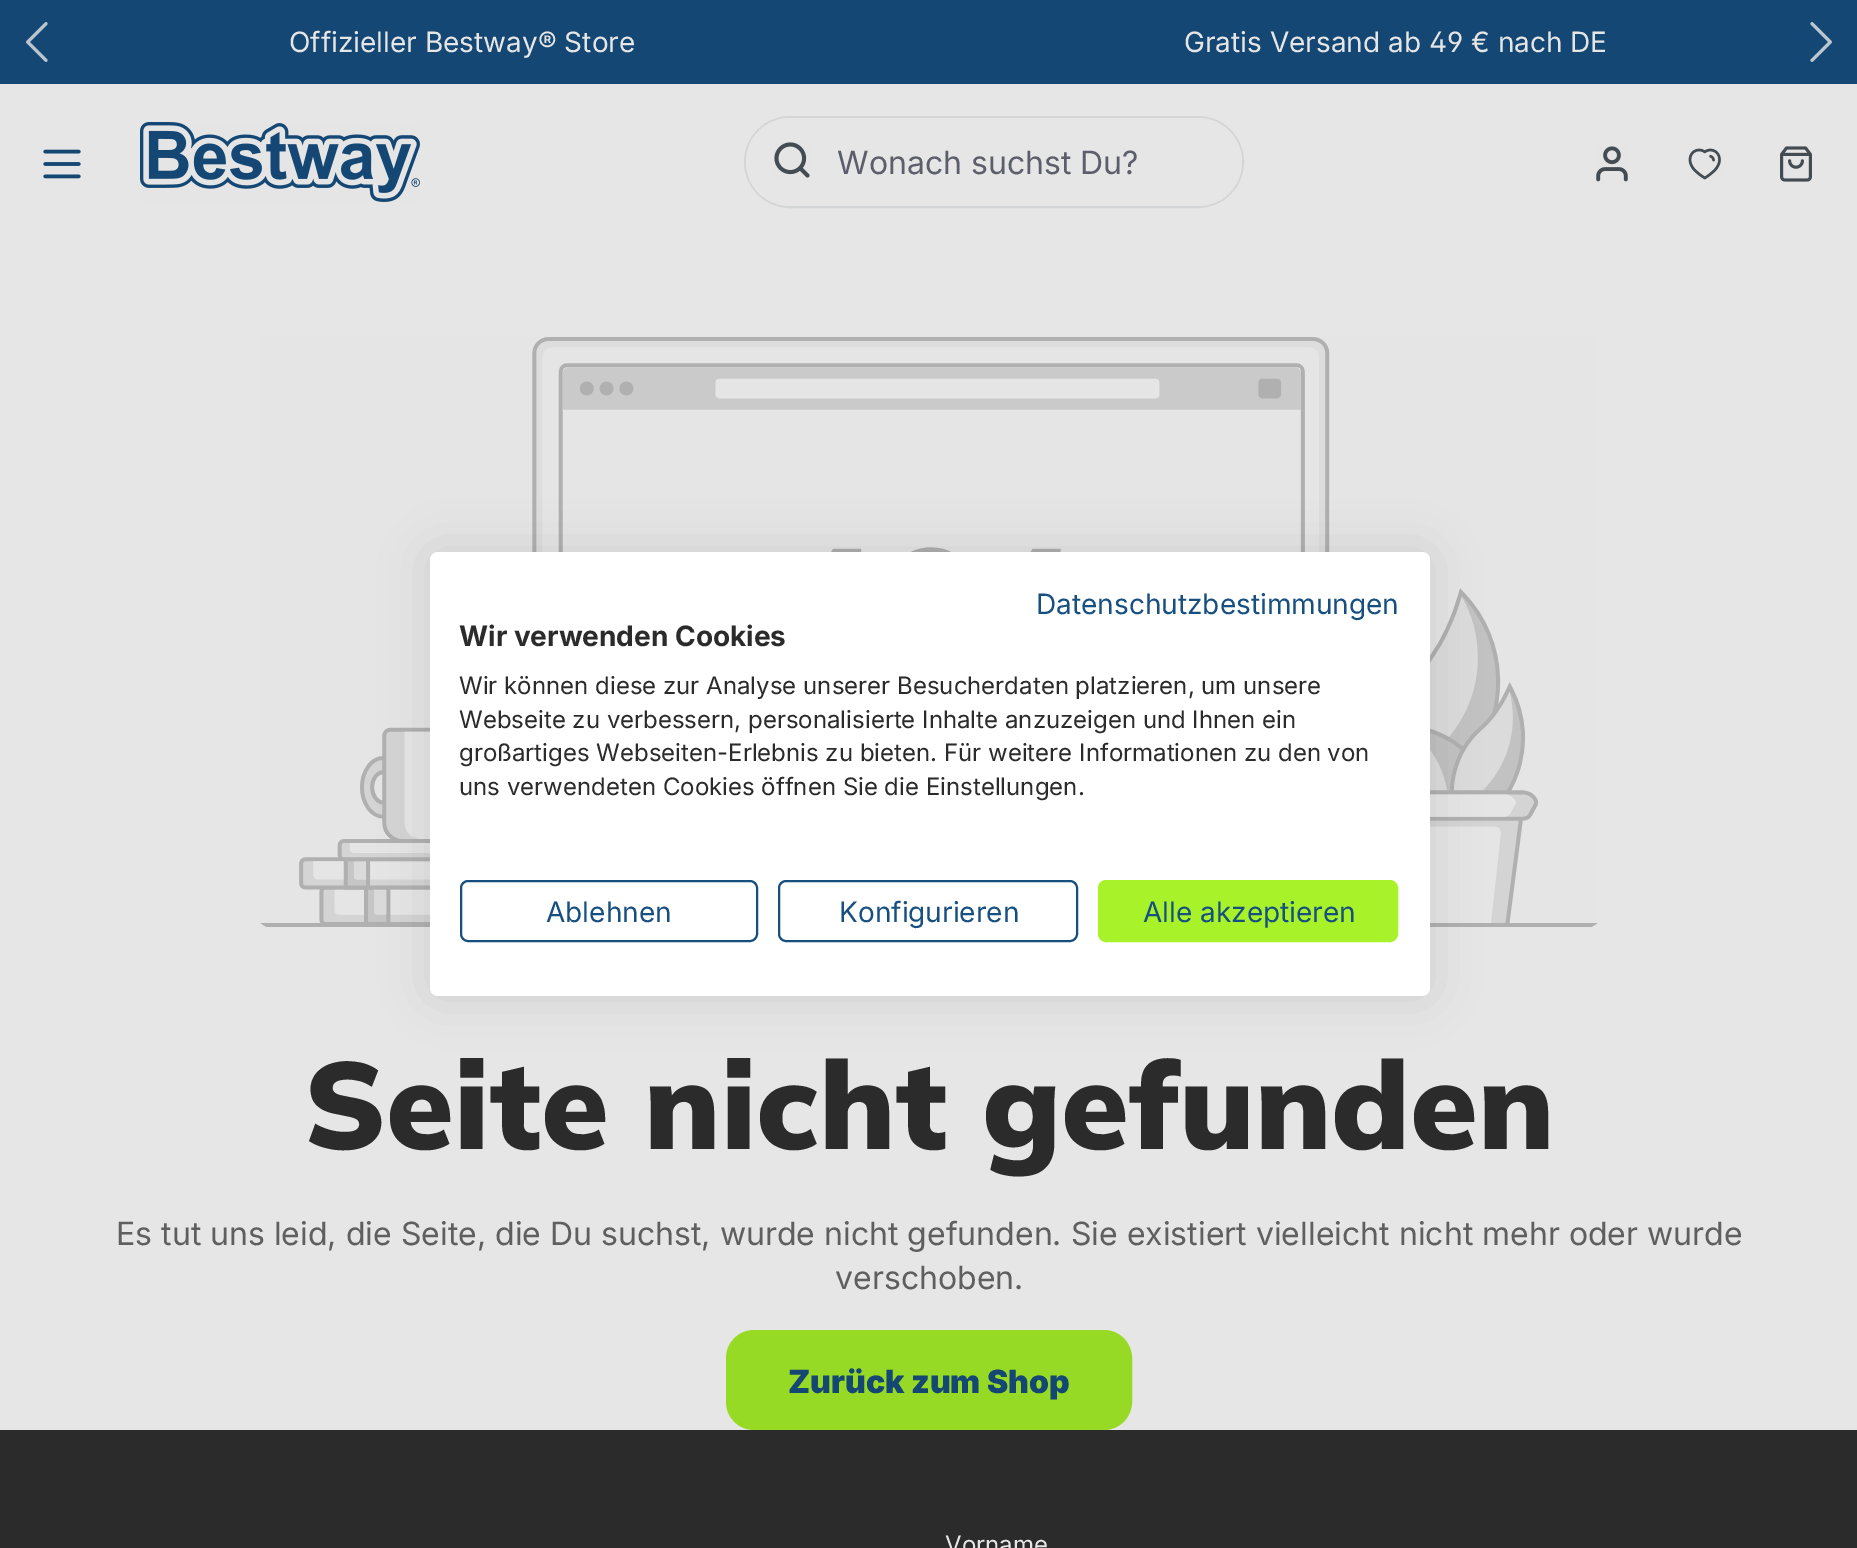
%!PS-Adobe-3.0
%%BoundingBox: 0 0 1857 1548
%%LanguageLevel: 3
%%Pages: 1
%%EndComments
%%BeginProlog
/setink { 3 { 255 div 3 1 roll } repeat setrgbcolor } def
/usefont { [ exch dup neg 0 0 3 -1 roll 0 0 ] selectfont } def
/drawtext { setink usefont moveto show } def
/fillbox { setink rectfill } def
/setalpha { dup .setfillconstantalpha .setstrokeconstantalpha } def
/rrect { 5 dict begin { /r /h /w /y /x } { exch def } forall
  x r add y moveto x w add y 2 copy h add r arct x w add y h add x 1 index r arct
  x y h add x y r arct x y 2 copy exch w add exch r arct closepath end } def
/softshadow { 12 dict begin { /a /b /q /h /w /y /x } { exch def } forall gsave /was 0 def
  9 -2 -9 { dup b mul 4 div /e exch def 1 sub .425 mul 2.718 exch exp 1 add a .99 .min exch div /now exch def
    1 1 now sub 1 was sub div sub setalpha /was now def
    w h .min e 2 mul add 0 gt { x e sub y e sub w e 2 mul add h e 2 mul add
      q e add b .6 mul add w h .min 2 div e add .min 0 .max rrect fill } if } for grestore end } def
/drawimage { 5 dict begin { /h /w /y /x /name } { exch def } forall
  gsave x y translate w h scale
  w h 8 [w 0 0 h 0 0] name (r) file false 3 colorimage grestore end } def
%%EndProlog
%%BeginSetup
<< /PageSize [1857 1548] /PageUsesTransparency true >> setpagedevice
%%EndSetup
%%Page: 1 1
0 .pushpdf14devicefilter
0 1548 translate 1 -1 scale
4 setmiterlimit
0 0 1857 1548 230 230 230 fillbox
0 0 1857 84 21 71 116 fillbox
(assets/img1.rgb) 26 22 22 40 drawimage
(Offizieller Bestway® Store) 289 52 /Inter-Regular 28 230 230 230 drawtext
(Gratis Versand ab 49 € nach DE) 1184 52 /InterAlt-Regular 28 230 230 230 drawtext
(assets/img2.rgb) 1810 22 22 40 drawimage
(assets/img3.rgb) 43 149 38 30 drawimage
(assets/img4.rgb) 140 122 280 80 drawimage
212 213 214 setink
2 setlinewidth
745 117 498 90 45 rrect stroke
230 230 230 setink
790 118 moveto 838 118 lineto 838 206 lineto 790 206 lineto 765.5 206 746 186.5 746 162 curveto 746 137.5 765.5 118 790 118 curveto closepath fill
(assets/img5.rgb) 774 142 36 36 drawimage
838 118 moveto 1198 118 lineto 1222.5 118 1242 137.5 1242 162 curveto 1242 186.5 1222.5 206 1198 206 curveto 838 206 lineto closepath fill
(Wonach suchst Du?) 837 174 /Inter-Regular 32 92 95 107 drawtext
(assets/img6.rgb) 1596 146 32 36 drawimage
(assets/img7.rgb) 1688 148 33 32 drawimage
(assets/img8.rgb) 1780 146 32 36 drawimage
(assets/img9.rgb) 260 337 1338 590 drawimage
0 0 0 setink
430 552 1000 444 8 24 0.1 softshadow
255 255 255 setink
430 552 1000 444 8 rrect fill
(Datenschutzbestimmungen) 1036 614 /Inter-Regular 28 23 79 129 drawtext
(Wir verwenden Cookies) 459 646 /Inter-Bold 28 43 43 43 drawtext
(Wir können diese zur Analyse unserer Besucherdaten platzieren, um unsere) 459 694 /Inter-Regular 24 43 43 43 drawtext
(Webseite zu verbessern, personalisierte Inhalte anzuzeigen und Ihnen ein) 459 728 /Inter-Regular 24 43 43 43 drawtext
(großartiges Webseiten-Erlebnis zu bieten. Für weitere Informationen zu den von) 459 761 /Inter-Regular 24 43 43 43 drawtext
(uns verwendeten Cookies öffnen Sie die Einstellungen.) 459 795 /Inter-Regular 24 43 43 43 drawtext
23 79 129 setink
461 881 296 60 7 rrect stroke
(Ablehnen) 546 922 /Inter-Regular 28 23 79 129 drawtext
779 881 298 60 7 rrect stroke
(Konfigurieren) 839 922 /Inter-Regular 28 23 79 129 drawtext
168 242 41 setink
1099 881 298 60 7 rrect gsave fill grestore
stroke
(Alle akzeptieren) 1143 922 /Inter-Regular 28 23 79 129 drawtext
(Seite nicht gefunden) 304 1149 /Mulish-ExtraLight 122.9 43 43 43 drawtext
(Es tut uns leid, die Seite, die Du suchst, wurde nicht gefunden. Sie existiert vielleicht nicht mehr oder wurde) 116 1245 /Inter-Regular 32 95 95 95 drawtext
(verschoben.) 835 1289 /Inter-Regular 32 95 95 95 drawtext
151 218 37 setink
727 1331 404 98 27 rrect gsave fill grestore
stroke
(Zurück zum Shop) 788 1393 /Inter-Black 32 21 71 116 drawtext
0 1430 1857 118 43 43 43 fillbox
(Vorname) 945 1553 /Inter-Regular 24 230 230 230 drawtext
.poppdf14devicefilter showpage
%%EOF
